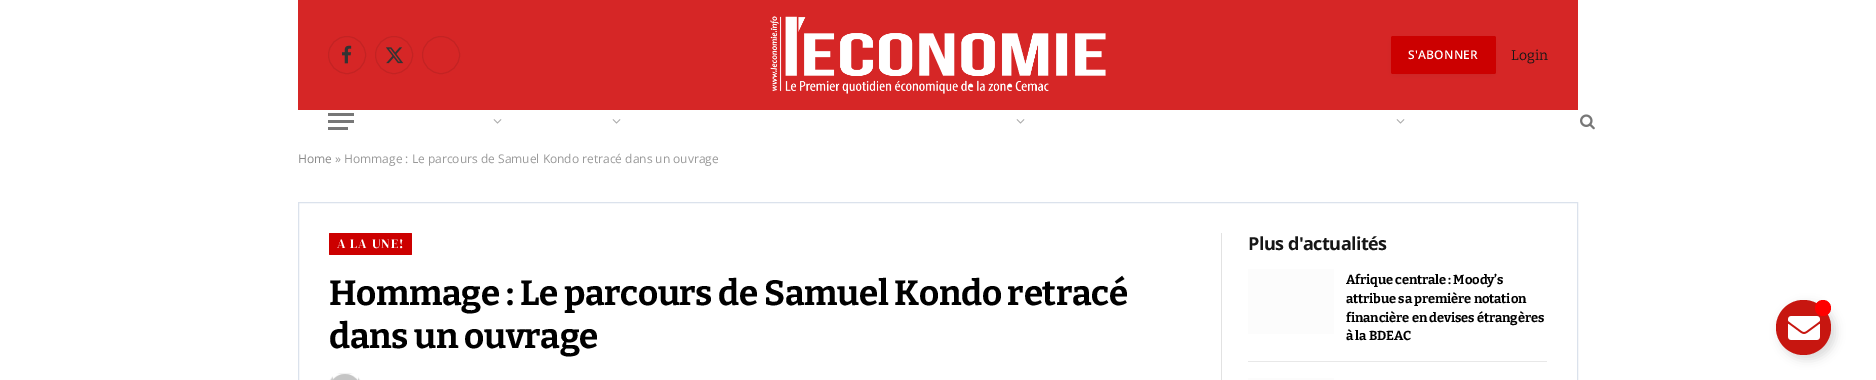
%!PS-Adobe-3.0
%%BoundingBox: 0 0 1876 380
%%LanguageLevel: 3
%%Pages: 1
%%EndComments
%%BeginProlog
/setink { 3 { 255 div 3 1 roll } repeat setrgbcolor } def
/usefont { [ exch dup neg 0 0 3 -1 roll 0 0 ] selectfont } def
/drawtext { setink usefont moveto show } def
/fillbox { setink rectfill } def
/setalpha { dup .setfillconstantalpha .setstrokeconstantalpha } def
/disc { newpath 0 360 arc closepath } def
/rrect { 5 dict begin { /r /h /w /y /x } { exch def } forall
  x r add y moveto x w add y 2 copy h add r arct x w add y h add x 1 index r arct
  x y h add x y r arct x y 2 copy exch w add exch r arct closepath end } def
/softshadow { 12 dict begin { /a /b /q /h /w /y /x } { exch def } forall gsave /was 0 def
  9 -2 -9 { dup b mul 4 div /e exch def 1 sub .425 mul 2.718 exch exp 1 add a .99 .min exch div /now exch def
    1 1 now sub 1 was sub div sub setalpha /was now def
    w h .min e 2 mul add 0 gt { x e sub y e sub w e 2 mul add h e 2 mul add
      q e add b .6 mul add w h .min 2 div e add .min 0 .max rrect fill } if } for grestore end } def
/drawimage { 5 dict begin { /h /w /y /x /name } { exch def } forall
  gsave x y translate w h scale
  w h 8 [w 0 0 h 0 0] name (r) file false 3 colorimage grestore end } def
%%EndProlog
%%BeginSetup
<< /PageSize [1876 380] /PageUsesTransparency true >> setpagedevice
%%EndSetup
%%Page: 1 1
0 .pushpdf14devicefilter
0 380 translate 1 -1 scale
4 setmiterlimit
0 0 1876 380 255 255 255 fillbox
298 0 1280 110 214 38 38 fillbox
195 35 35 setink
347 55 18.5 disc stroke
(assets/img1.rgb) 342 45 10 19 drawimage
394 55 18.5 disc stroke
(assets/img2.rgb) 386 47 18 17 drawimage
441 55 18.5 disc stroke
(assets/img3.rgb) 770 16 336 78 drawimage
0 0 0 setink
1395 42 97 30 0 3.5 0.16 softshadow
204 0 0 setink
1391 36 105 38 2 rrect fill
/OpenSans-SemiBold 12 usefont
255 255 255 setink
1408 59 moveto 0.25 0 (S'ABONNER) ashow
(Login) 1511 60 /Bitter-Regular 14 22 22 22 drawtext
328 127 20 3 119 119 119 fillbox
328 113 26 3 119 119 119 fillbox
328 120 26 3 119 119 119 fillbox
(assets/img4.rgb) 493 119 9 5 drawimage
(assets/img4.rgb) 612 119 9 5 drawimage
(assets/img4.rgb) 1016 119 9 5 drawimage
(assets/img4.rgb) 1396 119 9 5 drawimage
(assets/img5.rgb) 1580 114 15 16 drawimage
(Home) 298 163 /OpenSans-Regular 12 138 138 138 drawtext
(» Hommage : Le parcours de Samuel Kondo retracé dans un ouvrage) 335 163 /OpenSans-Regular 12 153 153 153 drawtext
219 226 236 setink
298.5 202.5 1279 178 rectstroke
204 0 0 setink
329 233 83 22 1 rrect fill
/DMSerifDisplay-Regular 13 usefont
255 255 255 setink
337 248 moveto 1 0 (A LA UNE!) ashow
/Bitter-Bold 35 usefont
0 0 0 setink
329 305 moveto -0.35 0 (Hommage : Le parcours de Samuel Kondo retracé) ashow
329 348 moveto -0.35 0 (dans un ouvrage) ashow
329 374 32 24 16 0.5 0.2 softshadow
(assets/img6.rgb) 333 374 25 6 drawimage
1221 233 1 147 226 226 226 fillbox
/OpenSans-Bold 18 usefont
22 22 22 setink
1248 250 moveto -0.5 0 (Plus d'actualités) ashow
1248 269 86 65 252 252 252 fillbox
/Bitter-Bold 13 usefont
0 0 0 setink
1346 284 moveto -0.1 0 (Afrique centrale : Moody’s) ashow
1346 303 moveto -0.1 0 (attribue sa première notation) ashow
1346 322 moveto -0.1 0 (financière en devises étrangères) ashow
1346 340 moveto -0.1 0 (à la BDEAC) ashow
1248 361 299 1 232 232 232 fillbox
1248 378 86 2 252 252 252 fillbox
0 0 0 setink
1780 304 55 55 27.5 5 0.15 softshadow
199 22 16 setink
1803.5 327.5 27.5 disc fill
255 0 0 setink
1823 308 8 disc fill
(assets/img7.rgb) 1788 316 32 24 drawimage
.poppdf14devicefilter showpage
%%EOF
